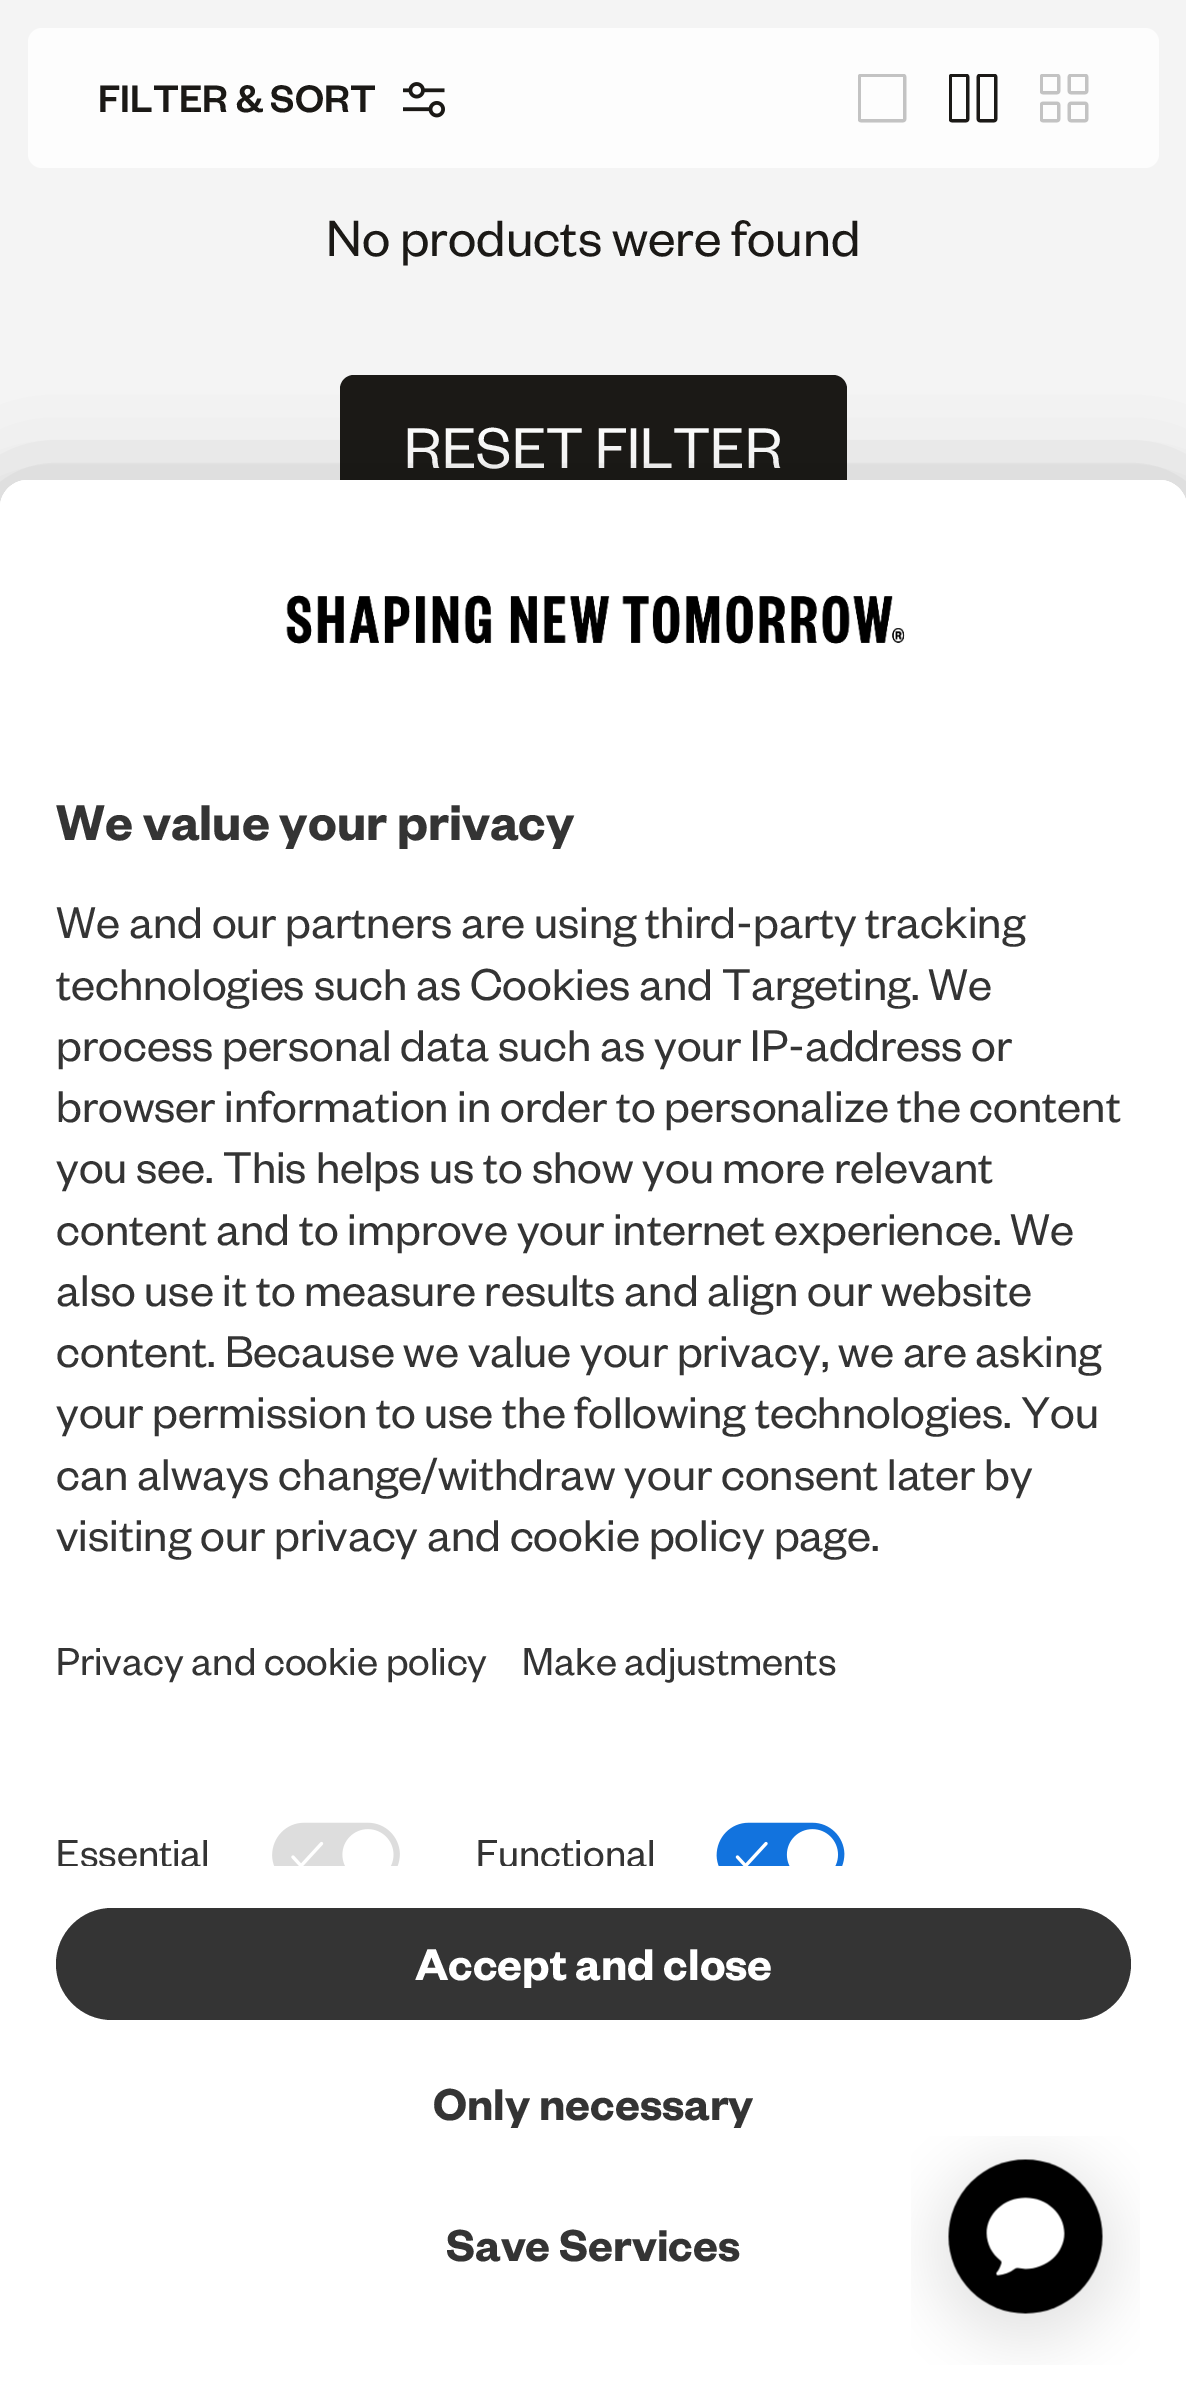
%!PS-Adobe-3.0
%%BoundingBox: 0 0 1186 2397
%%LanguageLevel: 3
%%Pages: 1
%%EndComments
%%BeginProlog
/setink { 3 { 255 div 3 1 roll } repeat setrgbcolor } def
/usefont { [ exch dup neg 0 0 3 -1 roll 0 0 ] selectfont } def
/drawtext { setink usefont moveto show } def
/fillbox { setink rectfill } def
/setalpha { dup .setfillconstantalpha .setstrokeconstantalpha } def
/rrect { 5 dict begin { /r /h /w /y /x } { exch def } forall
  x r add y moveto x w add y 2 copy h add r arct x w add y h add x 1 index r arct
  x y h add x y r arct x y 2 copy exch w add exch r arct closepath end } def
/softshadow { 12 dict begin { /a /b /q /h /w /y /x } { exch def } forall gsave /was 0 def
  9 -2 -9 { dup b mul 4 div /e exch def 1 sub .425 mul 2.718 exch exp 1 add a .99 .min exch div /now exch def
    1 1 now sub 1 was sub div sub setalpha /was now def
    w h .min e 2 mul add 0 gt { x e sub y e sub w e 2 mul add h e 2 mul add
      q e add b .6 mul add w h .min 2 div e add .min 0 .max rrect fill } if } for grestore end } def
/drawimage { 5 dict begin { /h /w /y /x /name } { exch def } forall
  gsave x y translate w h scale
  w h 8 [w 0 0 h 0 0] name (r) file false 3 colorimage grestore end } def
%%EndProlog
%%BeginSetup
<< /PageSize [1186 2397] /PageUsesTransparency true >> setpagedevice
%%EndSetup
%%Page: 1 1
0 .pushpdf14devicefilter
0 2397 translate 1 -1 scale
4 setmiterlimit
0 0 1186 2397 244 244 244 fillbox
0.8 setalpha
255 255 255 setink
28 28 1131 140 14 rrect fill
1 setalpha
(FILTER & SORT) 98 112 /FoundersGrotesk-Medium 42 27 25 22 drawtext
(assets/img1.rgb) 403 82 42 36 drawimage
(assets/img2.rgb) 858 74 49 49 drawimage
(assets/img3.rgb) 949 74 49 49 drawimage
(assets/img4.rgb) 1040 74 49 49 drawimage
(No products were found) 326 256 /FoundersGrotesk-Regular 56 27 25 22 drawtext
340 375 507 140 14 rrect fill
(RESET FILTER) 404 468 /FoundersGrotesk-Regular 63 255 255 255 drawtext
0 0 0 setink
0 550 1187 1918 28 49 0.3 softshadow
0 497 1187 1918 28 45.5 0.22 softshadow
255 255 255 setink
28 480 moveto 1159 480 lineto 1174.5 480 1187 492.5 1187 508 curveto 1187 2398 lineto 0 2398 lineto 0 508 lineto 0 492.5 12.5 480 28 480 curveto closepath fill
28 480 moveto 1159 480 lineto 1174.5 480 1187 492.5 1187 508 curveto 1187 1866 lineto 0 1866 lineto 0 508 lineto 0 492.5 12.5 480 28 480 curveto closepath fill
28 480 moveto 1159 480 lineto 1174.5 480 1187 492.5 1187 508 curveto 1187 1796 lineto 0 1796 lineto 0 508 lineto 0 492.5 12.5 480 28 480 curveto closepath fill
(assets/img5.rgb) 286 595 619 49 drawimage
(We value your privacy) 56 840 /FoundersGrotesk-SemiBold 55.1 52 52 52 drawtext
(We and our partners are using third-party tracking) 56 938 /FoundersGrotesk-Regular 49 52 52 52 drawtext
(technologies such as Cookies and Targeting. We) 56 1000 /FoundersGrotesk-Regular 49 52 52 52 drawtext
(process personal data such as your IP-address or) 56 1061 /FoundersGrotesk-Regular 49 52 52 52 drawtext
(browser information in order to personalize the content) 56 1122 /FoundersGrotesk-Regular 49 52 52 52 drawtext
(you see. This helps us to show you more relevant) 56 1183 /FoundersGrotesk-Regular 49 52 52 52 drawtext
(content and to improve your internet experience. We) 56 1245 /FoundersGrotesk-Regular 49 52 52 52 drawtext
(also use it to measure results and align our website) 56 1306 /FoundersGrotesk-Regular 49 52 52 52 drawtext
(content. Because we value your privacy, we are asking) 56 1367 /FoundersGrotesk-Regular 49 52 52 52 drawtext
(your permission to use the following technologies. You) 56 1428 /FoundersGrotesk-Regular 49 52 52 52 drawtext
(can always change/withdraw your consent later by) 56 1490 /FoundersGrotesk-Regular 49 52 52 52 drawtext
(visiting our privacy and cookie policy page.) 56 1551 /FoundersGrotesk-Regular 49 52 52 52 drawtext
(Privacy and cookie policy) 56 1675 /FoundersGrotesk-Regular 42.9 52 52 52 drawtext
(Make adjustments) 522 1675 /FoundersGrotesk-Regular 42.9 52 52 52 drawtext
gsave
28 480 moveto 1159 480 lineto 1174.5 480 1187 492.5 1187 508 curveto 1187 1866 lineto 0 1866 lineto 0 508 lineto 0 492.5 12.5 480 28 480 curveto closepath clip newpath
(Essential) 56 1867 /FoundersGrotesk-Regular 42.9 52 52 52 drawtext
grestore
(assets/img6.rgb) 272 1822 128 44 drawimage
gsave
28 480 moveto 1159 480 lineto 1174.5 480 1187 492.5 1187 508 curveto 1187 1866 lineto 0 1866 lineto 0 508 lineto 0 492.5 12.5 480 28 480 curveto closepath clip newpath
(Functional) 476 1867 /FoundersGrotesk-Regular 42.9 52 52 52 drawtext
grestore
(assets/img7.rgb) 716 1822 129 44 drawimage
56 1908 1075 112 56 rrect fill
(Accept and close) 415 1980 /FoundersGrotesk-SemiBold 49 255 255 255 drawtext
(Only necessary) 433 2120 /FoundersGrotesk-SemiBold 49 52 52 52 drawtext
(Save Services) 446 2261 /FoundersGrotesk-SemiBold 49 52 52 52 drawtext
(assets/img8.rgb) 911 2136 229 229 drawimage
.poppdf14devicefilter showpage
%%EOF
